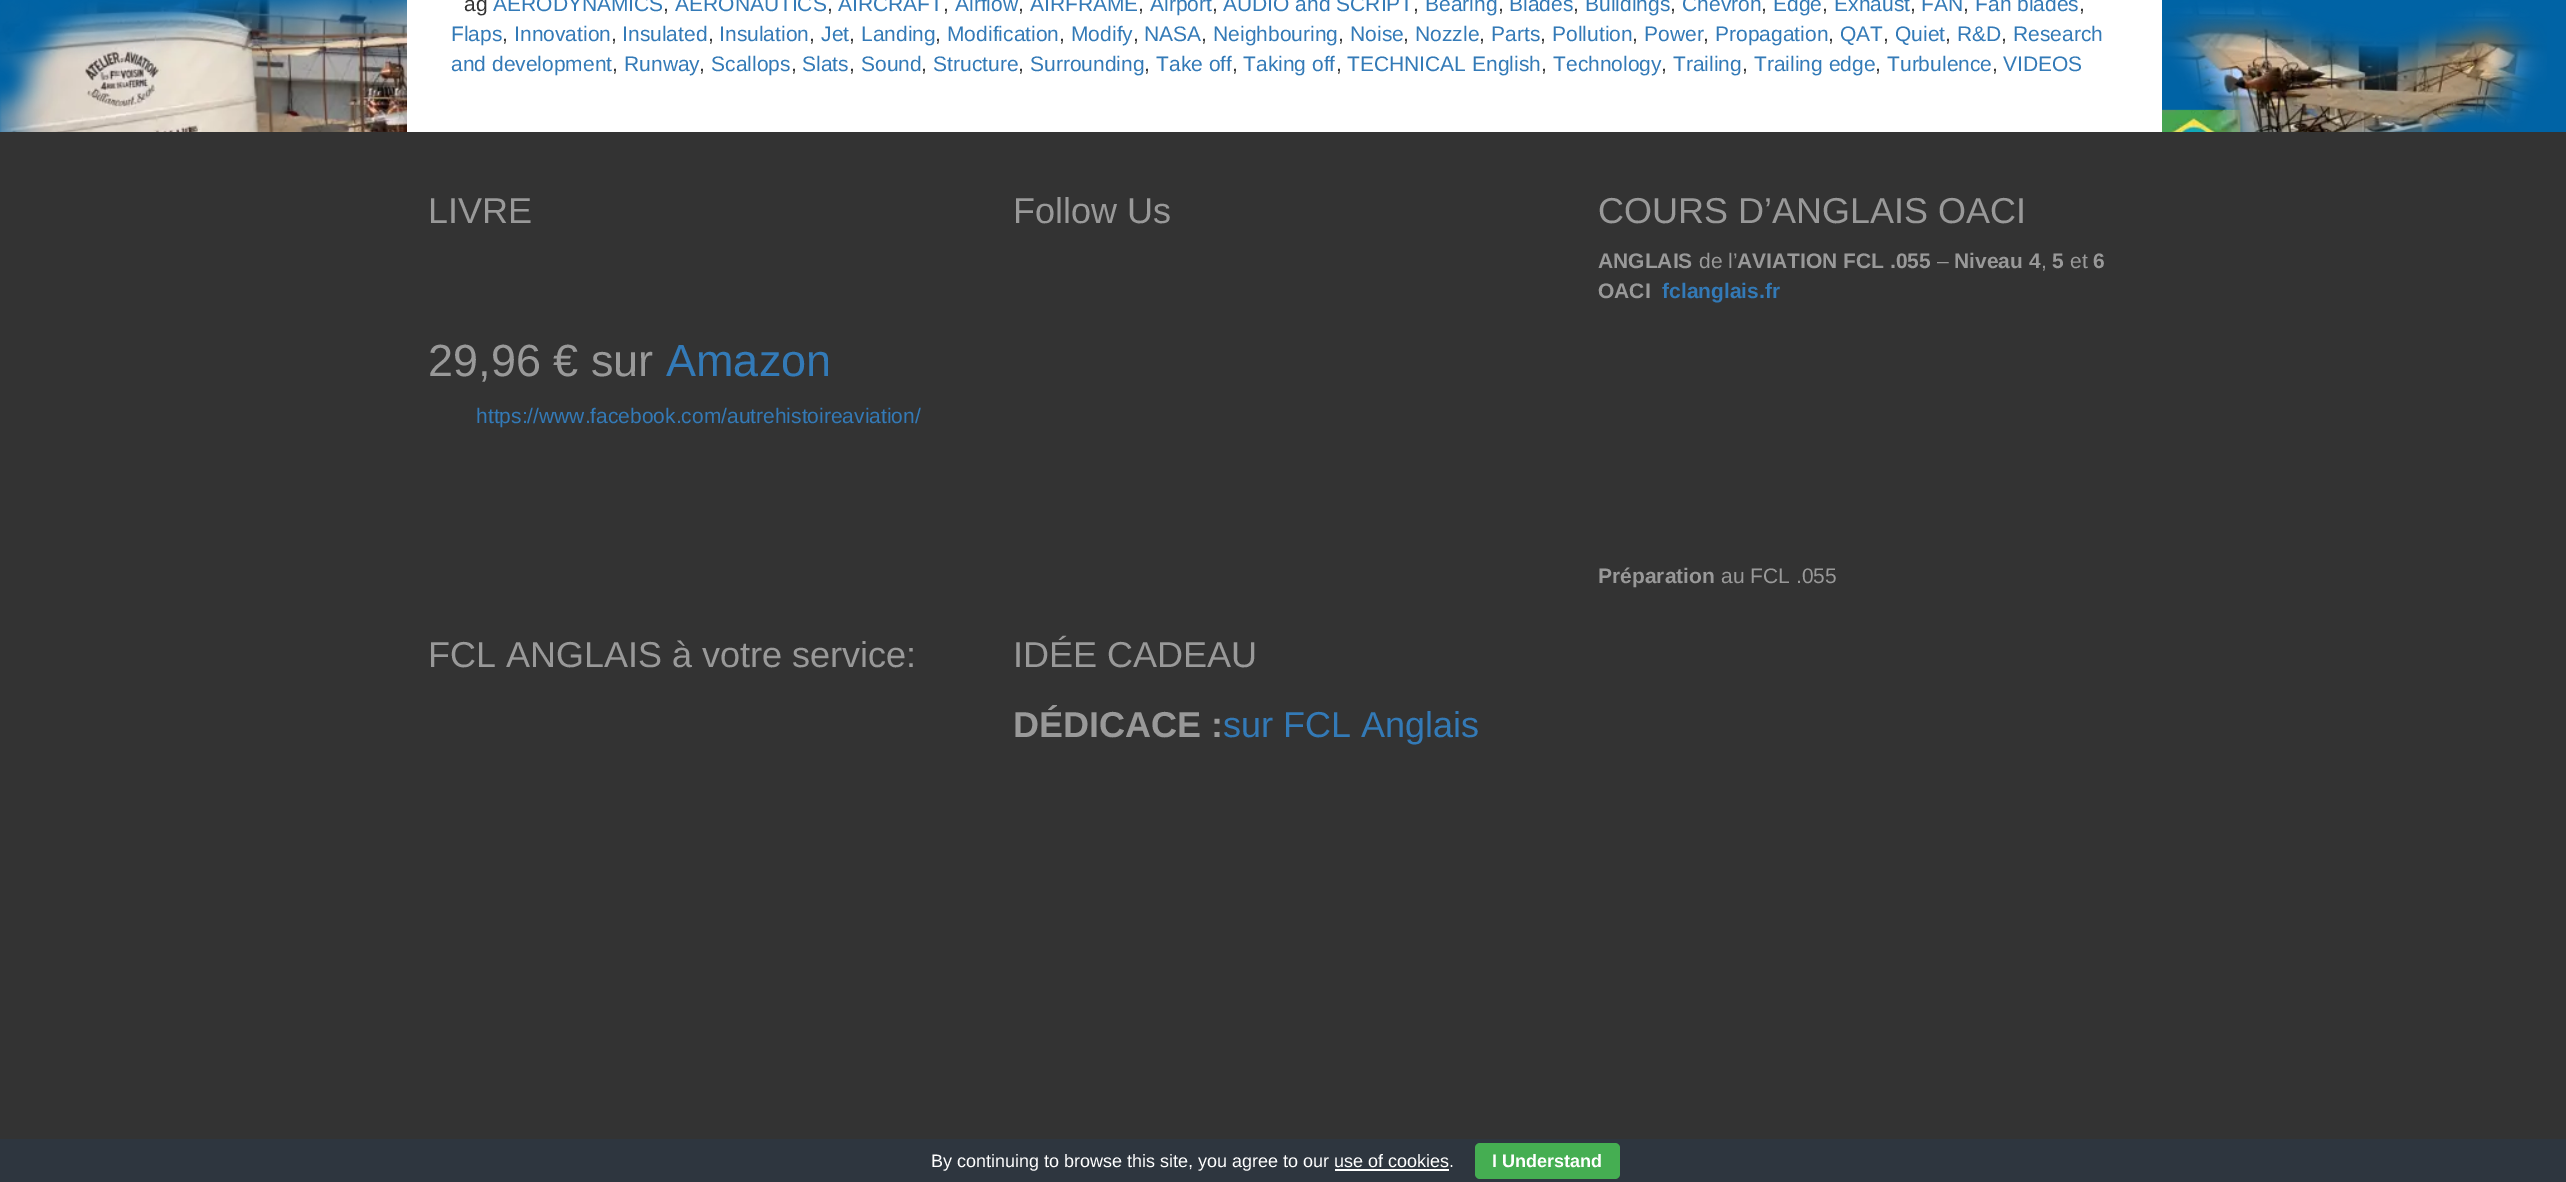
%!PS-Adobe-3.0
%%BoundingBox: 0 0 2566 1182
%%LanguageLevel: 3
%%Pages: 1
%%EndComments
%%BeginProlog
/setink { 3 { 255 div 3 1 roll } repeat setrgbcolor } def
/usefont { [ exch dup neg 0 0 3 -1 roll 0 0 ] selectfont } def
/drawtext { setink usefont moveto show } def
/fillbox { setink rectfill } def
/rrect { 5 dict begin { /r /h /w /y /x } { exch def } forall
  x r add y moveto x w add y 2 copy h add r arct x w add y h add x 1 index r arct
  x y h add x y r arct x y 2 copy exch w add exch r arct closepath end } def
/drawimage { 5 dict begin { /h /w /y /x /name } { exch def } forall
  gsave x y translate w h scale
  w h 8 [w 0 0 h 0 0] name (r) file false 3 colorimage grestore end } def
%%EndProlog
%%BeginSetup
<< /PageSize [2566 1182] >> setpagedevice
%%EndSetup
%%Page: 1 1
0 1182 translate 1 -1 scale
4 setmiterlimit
0 0 2566 1182 0 99 165 fillbox
(assets/img1.rgb) 0 0 2547 132 drawimage
407 0 1755 132 255 255 255 fillbox
(ag) 464 11 /LiberationSans-Regular 21 51 51 51 drawtext
(AERODYNAMICS) 493 11 /LiberationSans-Regular 21 51 122 183 drawtext
(,) 663 11 /LiberationSans-Regular 21 51 51 51 drawtext
(AERONAUTICS) 675 11 /LiberationSans-Regular 21 51 122 183 drawtext
(,) 827 11 /LiberationSans-Regular 21 51 51 51 drawtext
(AIRCRAFT) 838 11 /LiberationSans-Regular 21 51 122 183 drawtext
(,) 943 11 /LiberationSans-Regular 21 51 51 51 drawtext
(Airflow) 955 11 /LiberationSans-Regular 21 51 122 183 drawtext
(,) 1018 11 /LiberationSans-Regular 21 51 51 51 drawtext
(AIRFRAME) 1030 11 /LiberationSans-Regular 21 51 122 183 drawtext
(,) 1138 11 /LiberationSans-Regular 21 51 51 51 drawtext
(Airport) 1150 11 /LiberationSans-Regular 21 51 122 183 drawtext
(,) 1212 11 /LiberationSans-Regular 21 51 51 51 drawtext
(AUDIO and SCRIPT) 1223 11 /LiberationSans-Regular 21 51 122 183 drawtext
(,) 1413 11 /LiberationSans-Regular 21 51 51 51 drawtext
(Bearing) 1425 11 /LiberationSans-Regular 21 51 122 183 drawtext
(,) 1498 11 /LiberationSans-Regular 21 51 51 51 drawtext
(Blades) 1509 11 /LiberationSans-Regular 21 51 122 183 drawtext
(,) 1573 11 /LiberationSans-Regular 21 51 51 51 drawtext
(Buildings) 1585 11 /LiberationSans-Regular 21 51 122 183 drawtext
(,) 1670 11 /LiberationSans-Regular 21 51 51 51 drawtext
(Chevron) 1682 11 /LiberationSans-Regular 21 51 122 183 drawtext
(,) 1761 11 /LiberationSans-Regular 21 51 51 51 drawtext
(Edge) 1773 11 /LiberationSans-Regular 21 51 122 183 drawtext
(,) 1822 11 /LiberationSans-Regular 21 51 51 51 drawtext
(Exhaust) 1834 11 /LiberationSans-Regular 21 51 122 183 drawtext
(,) 1910 11 /LiberationSans-Regular 21 51 51 51 drawtext
(FAN) 1921 11 /LiberationSans-Regular 21 51 122 183 drawtext
(,) 1963 11 /LiberationSans-Regular 21 51 51 51 drawtext
(Fan blades) 1975 11 /LiberationSans-Regular 21 51 122 183 drawtext
(,) 2079 11 /LiberationSans-Regular 21 51 51 51 drawtext
(Flaps) 451 41 /LiberationSans-Regular 21 51 122 183 drawtext
(,) 502 41 /LiberationSans-Regular 21 51 51 51 drawtext
(Innovation) 514 41 /LiberationSans-Regular 21 51 122 183 drawtext
(,) 611 41 /LiberationSans-Regular 21 51 51 51 drawtext
(Insulated) 622 41 /LiberationSans-Regular 21 51 122 183 drawtext
(,) 708 41 /LiberationSans-Regular 21 51 51 51 drawtext
(Insulation) 719 41 /LiberationSans-Regular 21 51 122 183 drawtext
(,) 809 41 /LiberationSans-Regular 21 51 51 51 drawtext
(Jet) 821 41 /LiberationSans-Regular 21 51 122 183 drawtext
(,) 849 41 /LiberationSans-Regular 21 51 51 51 drawtext
(Landing) 861 41 /LiberationSans-Regular 21 51 122 183 drawtext
(,) 935 41 /LiberationSans-Regular 21 51 51 51 drawtext
(Modification) 947 41 /LiberationSans-Regular 21 51 122 183 drawtext
(,) 1059 41 /LiberationSans-Regular 21 51 51 51 drawtext
(Modify) 1071 41 /LiberationSans-Regular 21 51 122 183 drawtext
(,) 1133 41 /LiberationSans-Regular 21 51 51 51 drawtext
(NASA) 1144 41 /LiberationSans-Regular 21 51 122 183 drawtext
(,) 1201 41 /LiberationSans-Regular 21 51 51 51 drawtext
(Neighbouring) 1213 41 /LiberationSans-Regular 21 51 122 183 drawtext
(,) 1338 41 /LiberationSans-Regular 21 51 51 51 drawtext
(Noise) 1350 41 /LiberationSans-Regular 21 51 122 183 drawtext
(,) 1403 41 /LiberationSans-Regular 21 51 51 51 drawtext
(Nozzle) 1415 41 /LiberationSans-Regular 21 51 122 183 drawtext
(,) 1479 41 /LiberationSans-Regular 21 51 51 51 drawtext
(Parts) 1491 41 /LiberationSans-Regular 21 51 122 183 drawtext
(,) 1540 41 /LiberationSans-Regular 21 51 51 51 drawtext
(Pollution) 1552 41 /LiberationSans-Regular 21 51 122 183 drawtext
(,) 1632 41 /LiberationSans-Regular 21 51 51 51 drawtext
(Power) 1644 41 /LiberationSans-Regular 21 51 122 183 drawtext
(,) 1703 41 /LiberationSans-Regular 21 51 51 51 drawtext
(Propagation) 1715 41 /LiberationSans-Regular 21 51 122 183 drawtext
(,) 1828 41 /LiberationSans-Regular 21 51 51 51 drawtext
(QAT) 1840 41 /LiberationSans-Regular 21 51 122 183 drawtext
(,) 1883 41 /LiberationSans-Regular 21 51 51 51 drawtext
(Quiet) 1895 41 /LiberationSans-Regular 21 51 122 183 drawtext
(,) 1945 41 /LiberationSans-Regular 21 51 51 51 drawtext
(R&D) 1957 41 /LiberationSans-Regular 21 51 122 183 drawtext
(,) 2001 41 /LiberationSans-Regular 21 51 51 51 drawtext
(Research) 2013 41 /LiberationSans-Regular 21 51 122 183 drawtext
(and development) 451 71 /LiberationSans-Regular 21 51 122 183 drawtext
(,) 612 71 /LiberationSans-Regular 21 51 51 51 drawtext
(Runway) 624 71 /LiberationSans-Regular 21 51 122 183 drawtext
(,) 699 71 /LiberationSans-Regular 21 51 51 51 drawtext
(Scallops) 711 71 /LiberationSans-Regular 21 51 122 183 drawtext
(,) 791 71 /LiberationSans-Regular 21 51 51 51 drawtext
(Slats) 802 71 /LiberationSans-Regular 21 51 122 183 drawtext
(,) 849 71 /LiberationSans-Regular 21 51 51 51 drawtext
(Sound) 861 71 /LiberationSans-Regular 21 51 122 183 drawtext
(,) 921 71 /LiberationSans-Regular 21 51 51 51 drawtext
(Structure) 933 71 /LiberationSans-Regular 21 51 122 183 drawtext
(,) 1018 71 /LiberationSans-Regular 21 51 51 51 drawtext
(Surrounding) 1030 71 /LiberationSans-Regular 21 51 122 183 drawtext
(,) 1144 71 /LiberationSans-Regular 21 51 51 51 drawtext
(Take off) 1156 71 /LiberationSans-Regular 21 51 122 183 drawtext
(,) 1232 71 /LiberationSans-Regular 21 51 51 51 drawtext
(Taking off) 1243 71 /LiberationSans-Regular 21 51 122 183 drawtext
(,) 1336 71 /LiberationSans-Regular 21 51 51 51 drawtext
(TECHNICAL English) 1347 71 /LiberationSans-Regular 21 51 122 183 drawtext
(,) 1541 71 /LiberationSans-Regular 21 51 51 51 drawtext
(Technology) 1553 71 /LiberationSans-Regular 21 51 122 183 drawtext
(,) 1661 71 /LiberationSans-Regular 21 51 51 51 drawtext
(Trailing) 1673 71 /LiberationSans-Regular 21 51 122 183 drawtext
(,) 1742 71 /LiberationSans-Regular 21 51 51 51 drawtext
(Trailing edge) 1754 71 /LiberationSans-Regular 21 51 122 183 drawtext
(,) 1875 71 /LiberationSans-Regular 21 51 51 51 drawtext
(Turbulence) 1887 71 /LiberationSans-Regular 21 51 122 183 drawtext
(,) 1992 71 /LiberationSans-Regular 21 51 51 51 drawtext
(VIDEOS) 2003 71 /LiberationSans-Regular 21 51 122 183 drawtext
0 132 2566 1007 51 51 51 fillbox
(LIVRE) 428 223 /LiberationSans-Regular 36 153 153 153 drawtext
(29,96 € sur) 428 376 /LiberationSans-Regular 45 153 153 153 drawtext
(Amazon) 666 376 /LiberationSans-Regular 45 51 122 183 drawtext
(https://www.facebook.com/autrehistoireaviation/) 476 423 /LiberationSans-Regular 21 51 122 183 drawtext
(Follow Us) 1013 223 /LiberationSans-Regular 36 153 153 153 drawtext
(COURS D’ANGLAIS OACI) 1598 223 /LiberationSans-Regular 36 153 153 153 drawtext
(ANGLAIS) 1598 268 /LiberationSans-Bold 21 153 153 153 drawtext
(de l’) 1699 268 /LiberationSans-Regular 21 153 153 153 drawtext
(AVIATION FCL .055) 1737 268 /LiberationSans-Bold 21 153 153 153 drawtext
(–) 1937 268 /LiberationSans-Regular 21 153 153 153 drawtext
(Niveau 4) 1954 268 /LiberationSans-Bold 21 153 153 153 drawtext
(5) 2052 268 /LiberationSans-Bold 21 153 153 153 drawtext
(et) 2070 268 /LiberationSans-Regular 21 153 153 153 drawtext
(6) 2093 268 /LiberationSans-Bold 21 153 153 153 drawtext
(,) 2041 268 /LiberationSans-Regular 21 153 153 153 drawtext
(OACI) 1598 298 /LiberationSans-Bold 21 153 153 153 drawtext
(fclanglais.fr) 1662 298 /LiberationSans-Bold 21 51 122 183 drawtext
(Préparation) 1598 583 /LiberationSans-Bold 21 153 153 153 drawtext
(au FCL .055) 1721 583 /LiberationSans-Regular 21 153 153 153 drawtext
(FCL ANGLAIS à votre service:) 428 667 /LiberationSans-Regular 36 153 153 153 drawtext
(IDÉE CADEAU) 1013 667 /LiberationSans-Regular 36 153 153 153 drawtext
(DÉDICACE :) 1013 737 /LiberationSans-Bold 36 153 153 153 drawtext
(sur FCL Anglais) 1223 737 /LiberationSans-Regular 36 51 122 183 drawtext
0 1139 2566 43 46 54 63 fillbox
(By continuing to browse this site, you agree to our use of cookies.) 931 1167 /LiberationSans-Regular 18 255 255 255 drawtext
69 174 82 setink
1475 1143 145 36 5 rrect fill
(I Understand) 1492 1167 /LiberationSans-Bold 18 255 255 255 drawtext
1335 1169 114 2 255 255 255 fillbox
showpage
%%EOF
